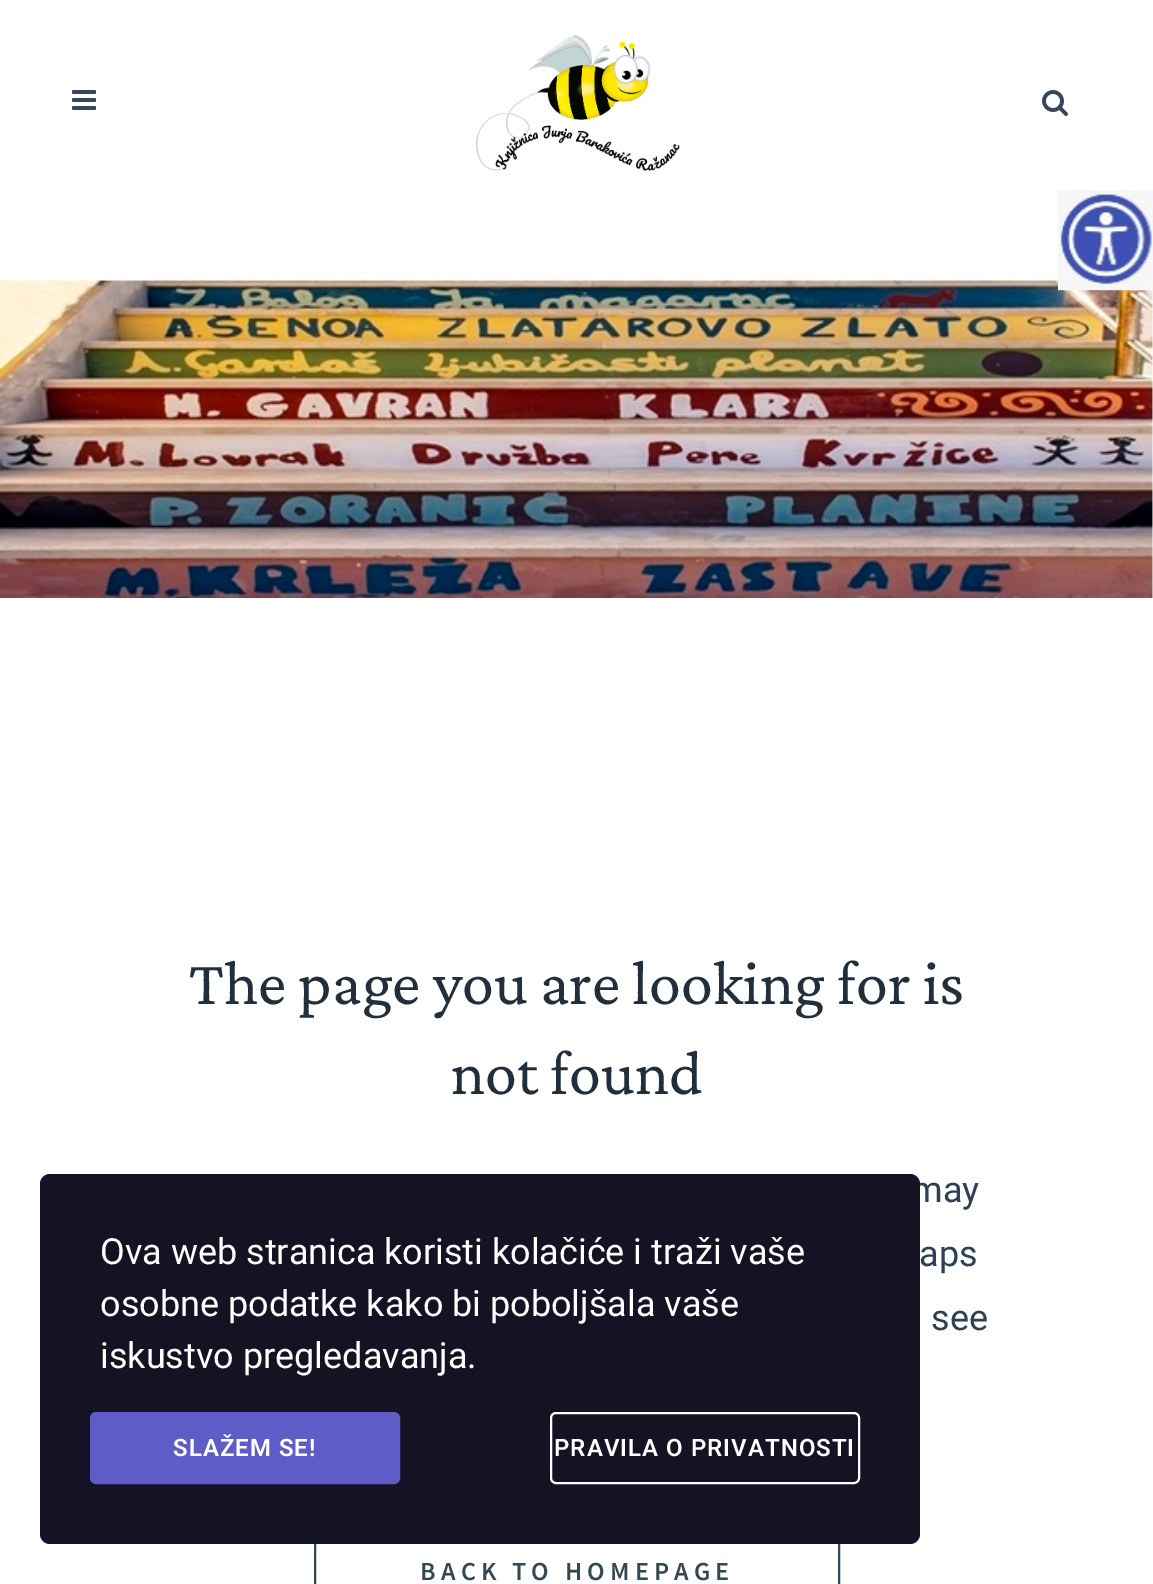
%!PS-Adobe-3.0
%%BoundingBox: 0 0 1153 1584
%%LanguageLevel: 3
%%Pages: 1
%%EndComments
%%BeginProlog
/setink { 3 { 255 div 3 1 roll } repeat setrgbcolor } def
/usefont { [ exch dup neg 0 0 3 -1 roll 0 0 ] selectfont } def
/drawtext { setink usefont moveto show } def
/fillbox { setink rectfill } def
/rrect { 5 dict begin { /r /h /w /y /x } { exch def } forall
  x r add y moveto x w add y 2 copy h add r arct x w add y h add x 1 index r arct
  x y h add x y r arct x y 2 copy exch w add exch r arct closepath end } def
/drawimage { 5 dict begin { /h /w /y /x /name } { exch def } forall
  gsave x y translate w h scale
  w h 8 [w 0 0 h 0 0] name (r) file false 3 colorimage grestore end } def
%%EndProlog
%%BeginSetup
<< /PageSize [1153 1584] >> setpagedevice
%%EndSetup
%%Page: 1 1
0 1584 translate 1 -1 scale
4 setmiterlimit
0 0 1153 1584 255 255 255 fillbox
(assets/img5.rgb) 0 277 1153 321 drawimage
(assets/img1.rgb) 1058 190 95 101 drawimage
(assets/img2.rgb) 72 90 24 20 drawimage
(assets/img3.rgb) 476 35 204 136 drawimage
(assets/img4.rgb) 1042 90 26 26 drawimage
(The page you are looking for is) 189 1004 /CrimsonPro-Regular 64 33 47 61 drawtext
(not found) 451 1094 /CrimsonPro-Regular 64 33 47 61 drawtext
(may) 911 1202 /Roboto-Regular 36 46 64 83 drawtext
(aps) 919 1266 /Roboto-Regular 36 46 64 83 drawtext
(see) 931 1330 /Roboto-Regular 36 46 64 83 drawtext
50 72 82 setink
2 setlinewidth
315 1517 524 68 rectstroke
/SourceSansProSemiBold-SemiBold 26 usefont
420 1580 moveto 5.25 0 (BACK TO HOMEPAGE) ashow
19 19 35 setink
40 1174 880 370 10 rrect fill
(Ova web stranica koristi kolačiće i traži vaše) 100 1264 /Roboto-Regular 36 255 255 255 drawtext
(osobne podatke kako bi poboljšala vaše) 100 1316 /Roboto-Regular 36 255 255 255 drawtext
(iskustvo pregledavanja.) 100 1368 /Roboto-Regular 36 255 255 255 drawtext
94 92 199 setink
91 1413 308 70 5 rrect gsave fill grestore
stroke
/Roboto-SemiBold 24 usefont
255 255 255 setink
173 1456 moveto 1 0 (SLAŽEM SE!) ashow
551 1413 308 70 5 rrect stroke
554 1456 moveto 1 0 (PRAVILA O PRIVATNOSTI) ashow
showpage
%%EOF
